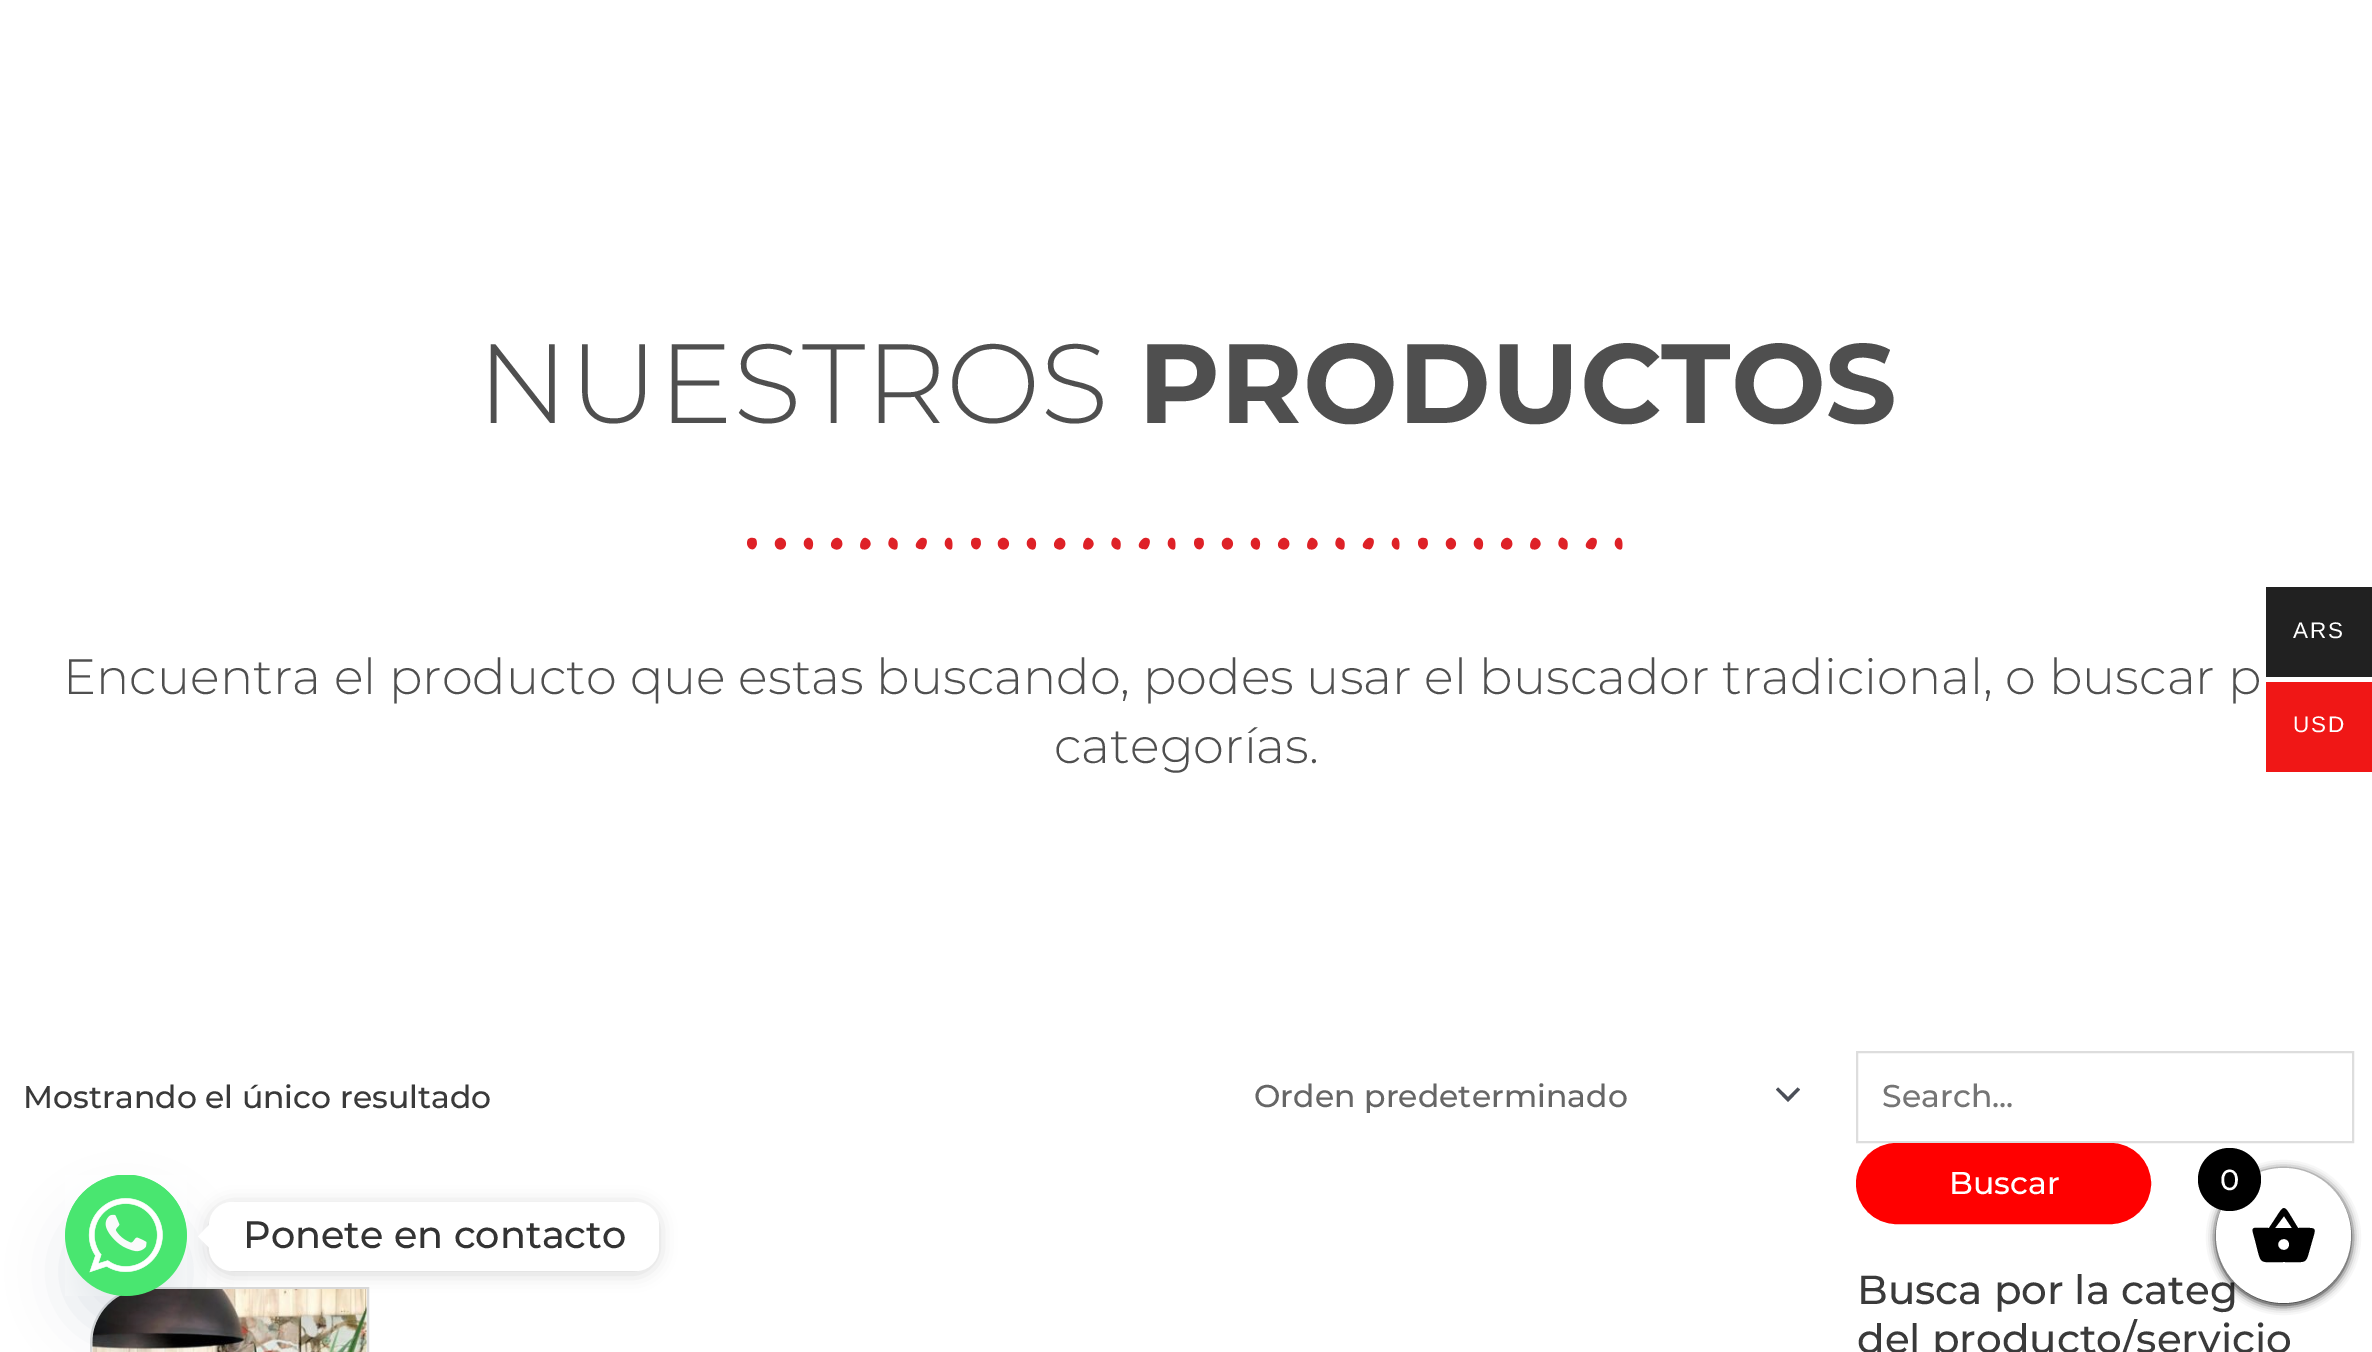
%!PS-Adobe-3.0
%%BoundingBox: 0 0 2372 1352
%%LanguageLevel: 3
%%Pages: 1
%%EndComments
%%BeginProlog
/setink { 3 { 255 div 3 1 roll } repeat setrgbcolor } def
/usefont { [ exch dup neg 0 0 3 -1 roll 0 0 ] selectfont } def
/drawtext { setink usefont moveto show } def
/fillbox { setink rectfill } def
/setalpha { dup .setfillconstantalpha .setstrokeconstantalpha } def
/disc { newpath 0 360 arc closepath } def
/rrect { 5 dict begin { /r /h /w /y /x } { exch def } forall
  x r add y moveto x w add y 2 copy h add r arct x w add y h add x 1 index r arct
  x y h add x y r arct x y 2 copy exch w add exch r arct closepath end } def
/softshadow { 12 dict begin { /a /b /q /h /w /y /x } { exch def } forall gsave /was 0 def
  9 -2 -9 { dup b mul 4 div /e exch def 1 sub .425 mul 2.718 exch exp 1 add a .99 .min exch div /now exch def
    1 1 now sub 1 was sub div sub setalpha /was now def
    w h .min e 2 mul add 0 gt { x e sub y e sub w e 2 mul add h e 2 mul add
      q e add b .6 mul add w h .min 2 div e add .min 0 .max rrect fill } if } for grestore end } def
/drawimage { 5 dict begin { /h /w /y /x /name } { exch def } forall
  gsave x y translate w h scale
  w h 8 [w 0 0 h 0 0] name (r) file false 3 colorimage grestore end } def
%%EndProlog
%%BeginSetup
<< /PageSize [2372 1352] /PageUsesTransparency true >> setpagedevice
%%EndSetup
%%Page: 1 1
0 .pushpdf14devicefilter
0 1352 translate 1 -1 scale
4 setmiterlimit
0 0 2372 1352 255 255 255 fillbox
(NUESTROS) 477 423 /Montserrat-Light 112.5 79 79 79 drawtext
(PRODUCTOS) 1138 423 /Montserrat-Bold 112.5 79 79 79 drawtext
(assets/img1.rgb) 747 537 876 13 drawimage
(Encuentra el producto que estas buscando, podes usar el buscador tradicional, o buscar p) 63 694 /Montserrat-Light 49.5 79 79 79 drawtext
(categorías.) 1054 763 /Montserrat-Light 49.5 79 79 79 drawtext
(Mostrando el único resultado) 23 1108 /Montserrat-Medium 31.5 58 58 58 drawtext
75 79 88 setink
1776 1089.5 moveto 1788 1102 lineto 1800 1089.5 lineto 1797.5 1087.5 lineto 1788 1097 lineto 1778 1087.5 lineto closepath fill
(Orden predeterminado) 1254 1107 /Montserrat-Medium 31.5 102 102 102 drawtext
219 219 219 setink
2 setlinewidth
146 1288 moveto 368 1288 lineto 368 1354 lineto 368 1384.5 343.5 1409 313 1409 curveto 91 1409 lineto 91 1343 lineto 91 1312.5 115.5 1288 146 1288 curveto closepath stroke
(assets/img2.rgb) 92 1289 275 63 drawimage
221 221 221 setink
1857 1052 496 90 rectstroke
(Search...) 1882 1107 /Montserrat-Medium 31.5 117 117 117 drawtext
255 0 0 setink
1857 1144 293 79 39.5 rrect gsave fill grestore
stroke
(Buscar) 1949 1194 /Montserrat-Medium 31.5 255 255 255 drawtext
(Busca por la categ) 1857 1304 /Montserrat-Medium 40.5 58 58 58 drawtext
(del producto/servicio) 1857 1353 /Montserrat-Medium 40.5 58 58 58 drawtext
2266 587 106 90 33 33 33 fillbox
/LiberationSans-Regular 22.5 usefont
255 255 255 setink
2293 638 moveto 2 0 (ARS) ashow
2266 682 106 90 240 23 22 fillbox
255 255 255 setink
2293 732 moveto 2 0 (USD) ashow
0 0 0 setink
2216 1170 135 135 67.5 4.5 1 softshadow
255 255 255 setink
2283.5 1235.5 67.5 disc fill
0 0 0 setink
2284 1250 moveto 2291 1250 2291 1239 2284 1239 curveto 2276 1239 2276 1250 2284 1250 curveto closepath 2275 1228 moveto 2292 1228 lineto 2284 1216 lineto closepath 2298 1228 moveto 2319 1228 2316 1226 2311 1245 curveto 2305 1265 2309 1262 2284 1262 curveto 2257 1262 2262 1266 2255 1240 curveto 2251 1225 2250 1228 2269 1228 curveto 2287 1202 2281 1201 2298 1228 curveto closepath fill
2229.5 1179.5 31.5 disc fill
(0) 2220 1190 /Montserrat-Medium 29 255 255 255 drawtext
73 104 126 setink
65 1211 122 121 60.5 27 0.16 softshadow
73 230 112 setink
65 1175 122 121 60.5 rrect fill
(assets/img3.rgb) 65 1175 122 121 drawimage
gsave
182 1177 moveto 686 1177 lineto 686 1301 lineto 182 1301 lineto closepath 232 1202 moveto 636 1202 lineto 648.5 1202 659 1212.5 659 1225 curveto 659 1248 lineto 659 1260.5 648.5 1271 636 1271 curveto 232 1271 lineto 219.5 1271 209 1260.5 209 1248 curveto 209 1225 lineto 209 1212.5 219.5 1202 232 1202 curveto closepath eoclip newpath
0 0 0 setink
209 1204 450 70 23 8.5 0.15 softshadow
grestore
255 255 255 setink
209 1202 450 69 23 rrect fill
209 1225 moveto 209 1247.5 lineto 198 1236.5 lineto closepath fill
(Ponete en contacto) 243 1248 /Montserrat-Medium 38.25 51 51 51 drawtext
.poppdf14devicefilter showpage
%%EOF
